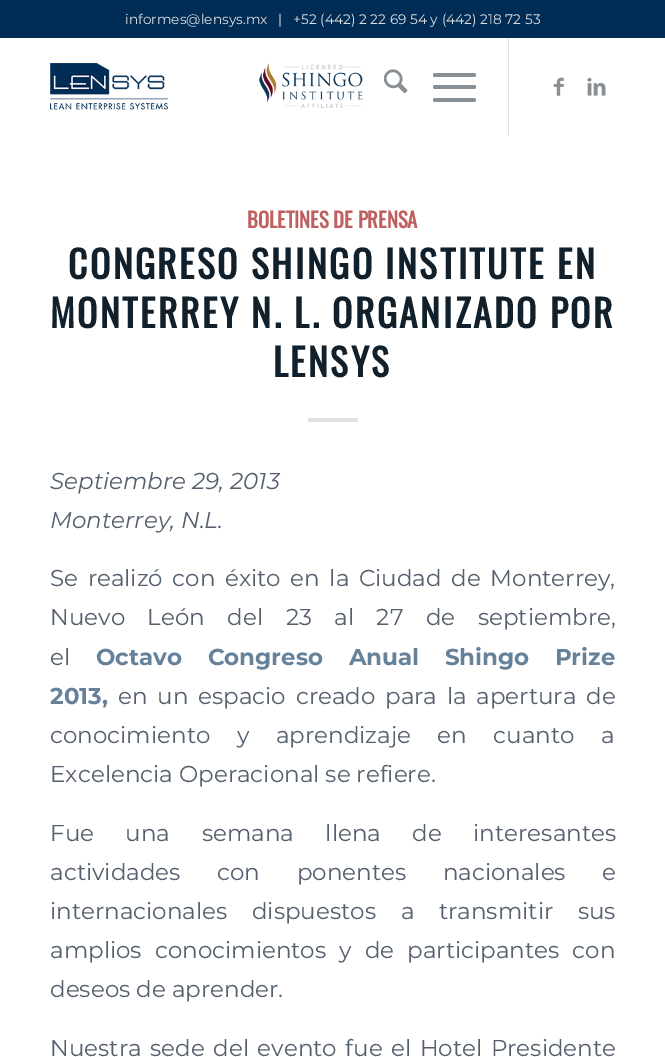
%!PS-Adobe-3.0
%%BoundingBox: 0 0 665 1057
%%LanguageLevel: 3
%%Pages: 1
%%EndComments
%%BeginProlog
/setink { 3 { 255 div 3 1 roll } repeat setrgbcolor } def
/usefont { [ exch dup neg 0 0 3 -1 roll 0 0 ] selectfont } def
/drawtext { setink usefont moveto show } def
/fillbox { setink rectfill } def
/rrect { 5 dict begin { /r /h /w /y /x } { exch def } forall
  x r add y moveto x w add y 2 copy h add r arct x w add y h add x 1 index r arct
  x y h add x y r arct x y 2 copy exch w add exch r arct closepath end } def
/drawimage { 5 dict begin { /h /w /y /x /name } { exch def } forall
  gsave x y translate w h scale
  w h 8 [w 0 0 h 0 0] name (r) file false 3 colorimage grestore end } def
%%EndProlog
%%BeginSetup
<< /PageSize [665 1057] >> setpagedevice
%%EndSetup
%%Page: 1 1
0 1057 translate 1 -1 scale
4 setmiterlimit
0 0 665 1057 255 255 255 fillbox
508 36 1 100 225 225 225 fillbox
0 0 665 38 0 44 86 fillbox
(informes@lensys.mx   |   +52 \(442\) 2 22 69 54 y \(442\) 218 72 53) 125 24 /Montserrat-Regular 13.75 222 222 222 drawtext
(assets/img1.rgb) 50 63 313 47 drawimage
(assets/img2.rgb) 384 69 24 25 drawimage
136 144 149 setink
433 85 43 4 2 rrect fill
433 73 43 4 2 rrect fill
433 98 43 4 2 rrect fill
(assets/img3.rgb) 553 77 11 19 drawimage
(assets/img4.rgb) 587 77 19 19 drawimage
(BOLETINES DE PRENSA) 247 228 /Oswald-Bold 20.75 192 95 95 drawtext
/Oswald-Bold 37.5 usefont
17 32 42 setink
68 279 moveto 2.5 0 (CONGRESO SHINGO INSTITUTE EN) ashow
50 328 moveto 2.5 0 (MONTERREY N. L. ORGANIZADO POR) ashow
273 377 moveto 2.5 0 (LENSYS) ashow
308 418 50 4 225 225 225 fillbox
(Septiembre 29, 2013) 50 489 /Montserrat-Italic 23 85 96 110 drawtext
(Monterrey, N.L.) 50 528 /Montserrat-Italic 23 85 96 110 drawtext
/Montserrat-Regular 23 usefont
50 586 moveto 3.5 0 32 (Se realizó con éxito en la Ciudad de Monterrey,) widthshow
50 625 moveto 16.5 0 32 (Nuevo León del 23 al 27 de septiembre,) widthshow
(el) 50 665 /Montserrat-Regular 23 85 96 110 drawtext
/Montserrat-Bold 23 usefont
102 129 154 setink
96 665 moveto 19 0 32 (Octavo Congreso Anual Shingo Prize) widthshow
(2013,) 50 704 /Montserrat-Bold 23 102 129 154 drawtext
/Montserrat-Regular 23 usefont
85 96 110 setink
118 704 moveto 3.75 0 32 (en un espacio creado para la apertura de) widthshow
50 743 moveto 20.5 0 32 (conocimiento y aprendizaje en cuanto a) widthshow
(Excelencia Operacional se refiere.) 50 782 /Montserrat-Regular 23 85 96 110 drawtext
50 841 moveto 25.5 0 32 (Fue una semana llena de interesantes) widthshow
50 880 moveto 30.5 0 32 (actividades con ponentes nacionales e) widthshow
50 919 moveto 18.5 0 32 (internacionales dispuestos a transmitir sus) widthshow
50 958 moveto 7 0 32 (amplios conocimientos y de participantes con) widthshow
(deseos de aprender.) 50 997 /Montserrat-Regular 23 85 96 110 drawtext
50 1056 moveto 2.5 0 32 (Nuestra sede del evento fue el Hotel Presidente) widthshow
showpage
%%EOF
